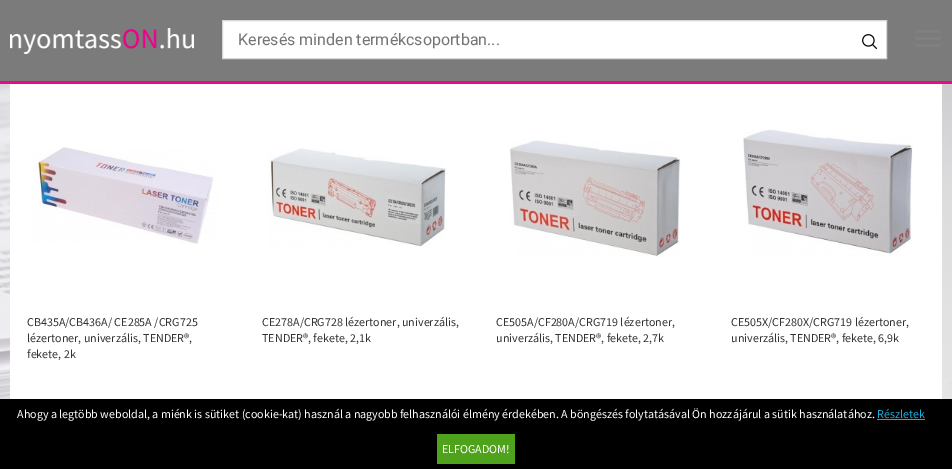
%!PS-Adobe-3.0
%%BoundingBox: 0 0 952 469
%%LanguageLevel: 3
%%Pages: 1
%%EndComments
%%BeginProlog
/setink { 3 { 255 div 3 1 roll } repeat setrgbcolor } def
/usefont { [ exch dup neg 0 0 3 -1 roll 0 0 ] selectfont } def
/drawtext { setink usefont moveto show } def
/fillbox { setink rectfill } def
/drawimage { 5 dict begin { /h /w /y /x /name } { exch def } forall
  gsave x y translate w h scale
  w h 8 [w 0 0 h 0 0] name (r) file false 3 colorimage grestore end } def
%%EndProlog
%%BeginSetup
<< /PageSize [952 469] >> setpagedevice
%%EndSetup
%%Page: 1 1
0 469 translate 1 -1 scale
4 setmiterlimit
0 0 952 469 255 255 255 fillbox
(assets/img1.rgb) 0 84 952 315 drawimage
0 0 952 81 123 123 123 fillbox
0 81 952 3 231 10 139 fillbox
(assets/img2.rgb) 10 28 184 26 drawimage
255 255 255 setink
222.5 20.5 moveto 886.5 20.5 lineto 886.5 58.5 lineto 222.5 58.5 lineto closepath gsave fill grestore
215 215 215 setink
stroke
(Keresés minden termékcsoportban...) 238 45 /Roboto-Regular 16 117 117 117 drawtext
(assets/img3.rgb) 862 34 16 15 drawimage
915 30 26 3 128 128 128 fillbox
915 37 26 3 128 128 128 fillbox
915 44 26 3 128 128 128 fillbox
10 84 932 315 255 255 255 fillbox
(assets/img4.rgb) 31 147 188 97 drawimage
(CB435A/CB436A/ CE285A /CRG725) 27 326 /SourceSansPro-Regular 12 51 51 51 drawtext
(lézertoner, univerzális, TENDER®,) 27 342 /SourceSansPro-Regular 12 51 51 51 drawtext
(fekete, 2k) 27 358 /SourceSansPro-Regular 12 51 51 51 drawtext
(assets/img5.rgb) 268 148 179 99 drawimage
(CE278A/CRG728 lézertoner, univerzális,) 262 326 /SourceSansPro-Regular 12 51 51 51 drawtext
(TENDER®, fekete, 2,1k) 262 342 /SourceSansPro-Regular 12 51 51 51 drawtext
(assets/img6.rgb) 510 140 171 117 drawimage
(CE505A/CF280A/CRG719 lézertoner,) 496 326 /SourceSansPro-Regular 12 51 51 51 drawtext
(univerzális, TENDER®, fekete, 2,7k) 496 342 /SourceSansPro-Regular 12 51 51 51 drawtext
(assets/img7.rgb) 743 129 170 127 drawimage
(CE505X/CF280X/CRG719 lézertoner,) 731 326 /SourceSansPro-Regular 12 51 51 51 drawtext
(univerzális, TENDER®, fekete, 6,9k) 731 342 /SourceSansPro-Regular 12 51 51 51 drawtext
0 399 952 70 0 0 0 fillbox
(Ahogy a legtöbb weboldal, a miénk is sütiket \(cookie-kat\) használ a nagyobb felhasználói élmény érdekében. A böngészés folytatásával Ön hozzájárul a sütik használatához.) 17 418 /SourceSansPro-Regular 12 255 255 255 drawtext
(Részletek) 877 418 /SourceSansPro-Regular 12 26 173 222 drawtext
877 419 48 1 26 173 222 fillbox
437 434 78 30 79 163 28 fillbox
(ELFOGADOM!) 442 453 /SourceSansPro-Regular 12 255 255 255 drawtext
showpage
%%EOF
